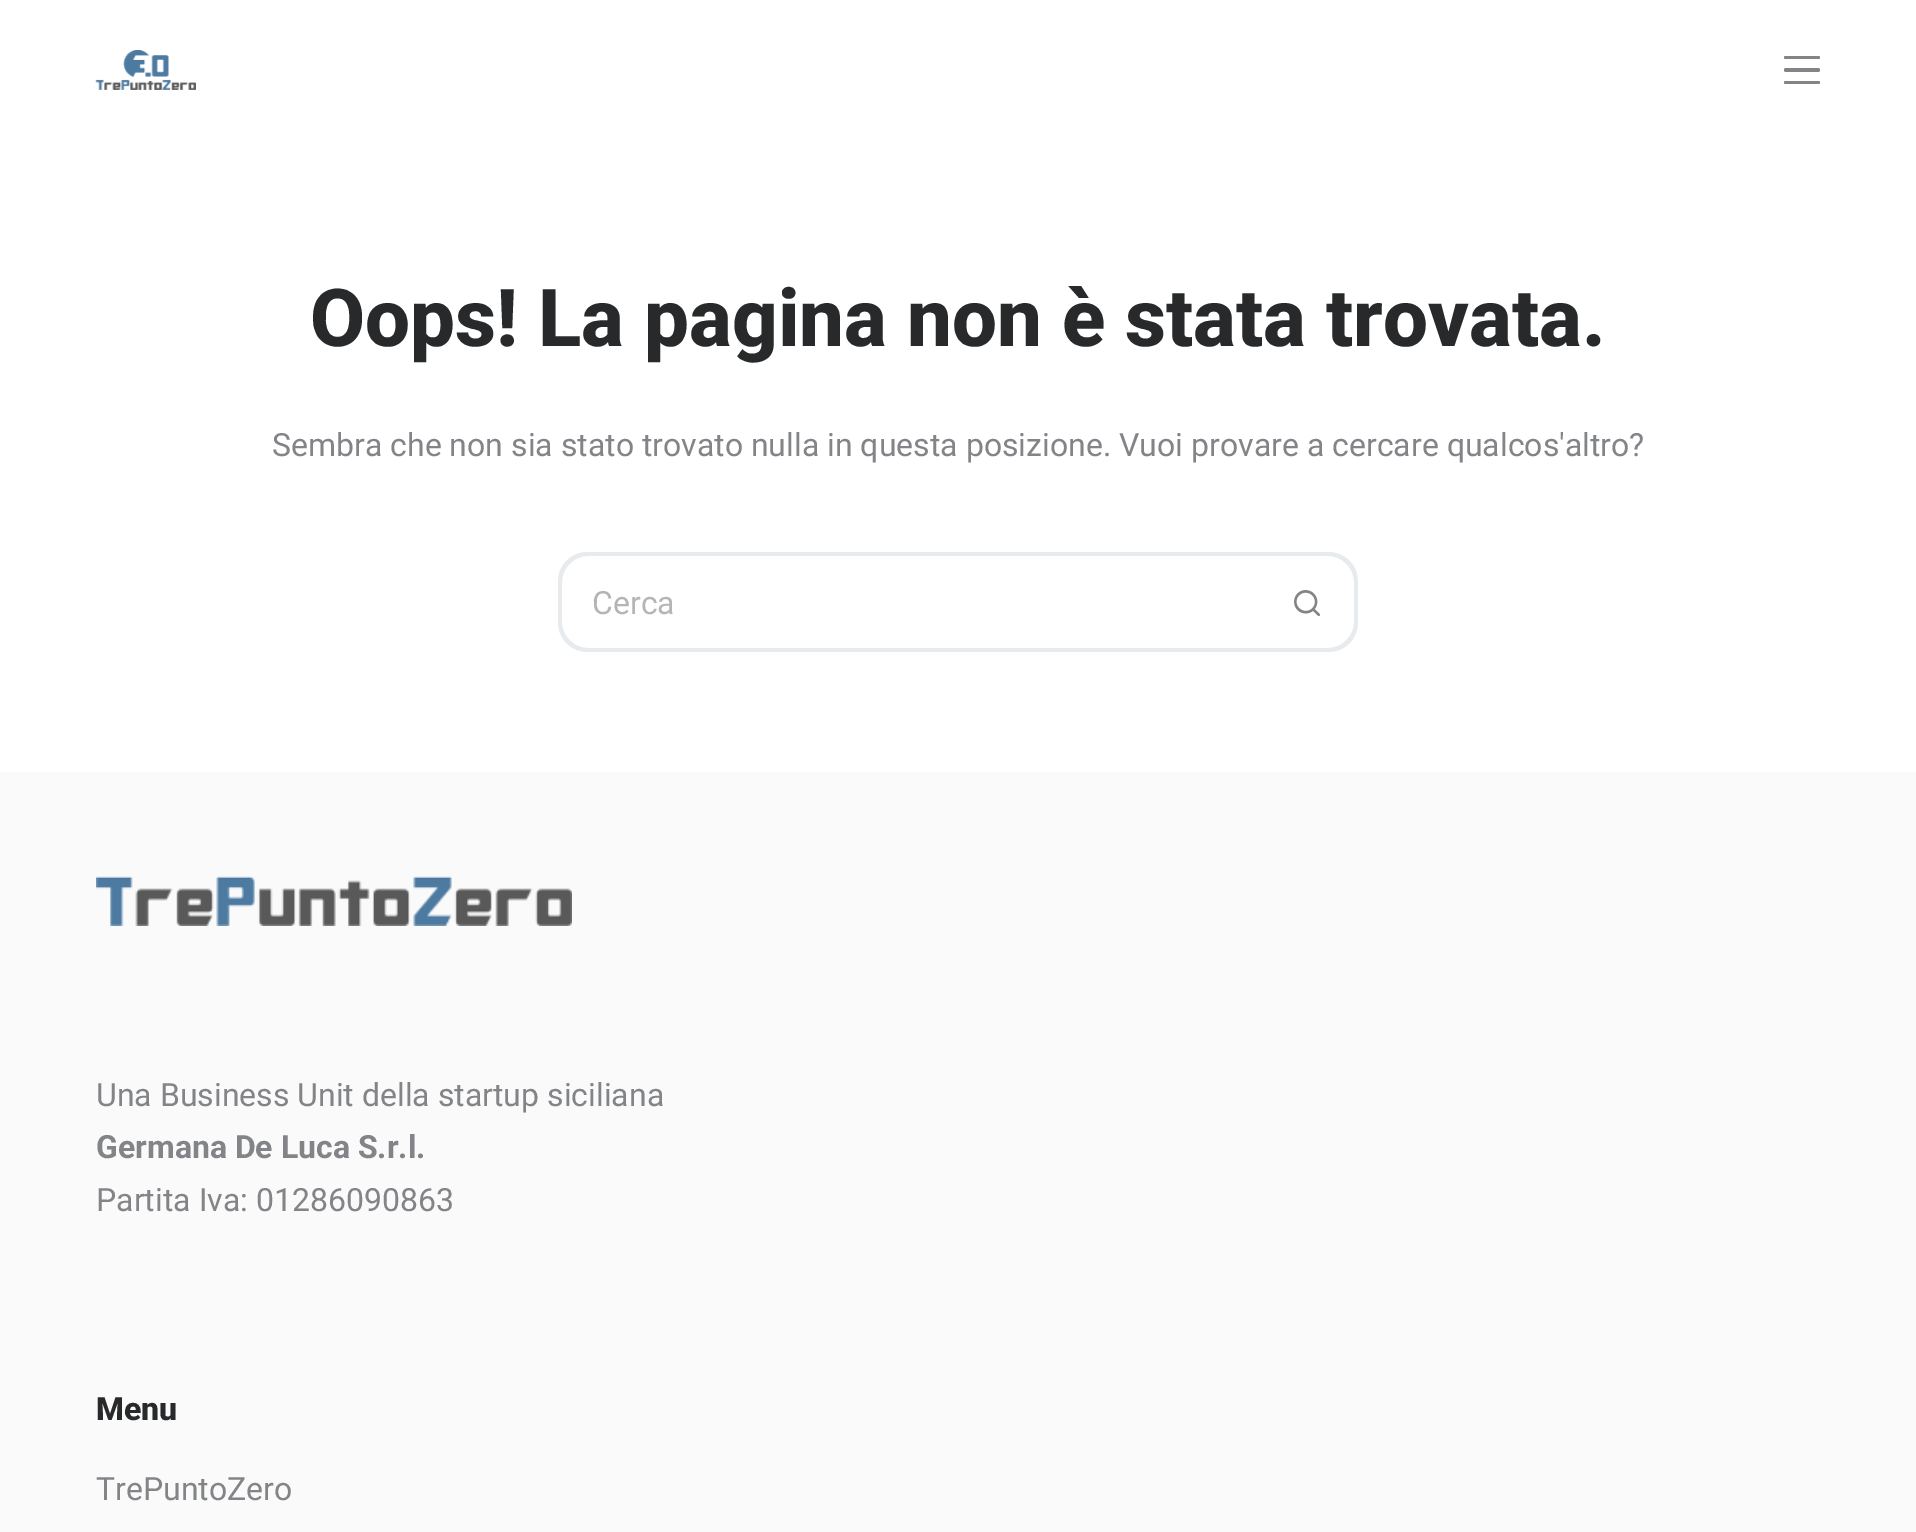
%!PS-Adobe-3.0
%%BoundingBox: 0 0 1916 1532
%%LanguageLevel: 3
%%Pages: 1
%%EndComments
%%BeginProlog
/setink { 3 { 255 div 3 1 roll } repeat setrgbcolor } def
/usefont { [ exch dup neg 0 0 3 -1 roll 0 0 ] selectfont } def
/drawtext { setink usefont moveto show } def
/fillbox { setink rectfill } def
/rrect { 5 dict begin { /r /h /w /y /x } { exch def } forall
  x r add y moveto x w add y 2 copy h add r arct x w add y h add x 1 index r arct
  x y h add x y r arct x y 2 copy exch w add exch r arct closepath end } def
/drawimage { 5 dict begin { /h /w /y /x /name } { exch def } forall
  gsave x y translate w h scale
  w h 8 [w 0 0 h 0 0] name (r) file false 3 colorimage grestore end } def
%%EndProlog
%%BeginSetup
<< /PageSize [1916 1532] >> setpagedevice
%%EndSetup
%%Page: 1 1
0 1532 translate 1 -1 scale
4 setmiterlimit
0 0 1916 1532 255 255 255 fillbox
(assets/img1.rgb) 95 50 101 40 drawimage
130 132 135 setink
1784 56 36 3 1.5 rrect fill
1784 68 36 4 2 rrect fill
1784 81 36 3 1.5 rrect fill
(Oops! La pagina non è stata trovata.) 310 346 /Roboto-ExtraBold 80 40 41 42 drawtext
(Sembra che non sia stato trovato nulla in questa posizione. Vuoi provare a cercare qualcos'altro?) 272 456 /Roboto-Regular 32 130 132 135 drawtext
232 235 237 setink
588 552 moveto 1258 552 lineto 1258 652 lineto 588 652 lineto 571 652 558 639 558 622 curveto 558 582 lineto 558 565 571 552 588 552 curveto closepath 588 556 moveto 1258 556 lineto 1258 648 lineto 588 648 lineto 574 648 562 636 562 622 curveto 562 582 lineto 562 568 574 556 588 556 curveto closepath eofill
(Cerca) 592 614 /Roboto-Regular 32 180 181 183 drawtext
232 235 237 setink
1258 552 moveto 1328 552 lineto 1345 552 1358 565 1358 582 curveto 1358 622 lineto 1358 639 1345 652 1328 652 curveto 1258 652 lineto closepath 1258 556 moveto 1328 556 lineto 1342 556 1354 568 1354 582 curveto 1354 622 lineto 1354 636 1342 648 1328 648 curveto 1258 648 lineto closepath eofill
(assets/img2.rgb) 1294 590 26 26 drawimage
0 772 1916 760 250 250 250 fillbox
(assets/img3.rgb) 96 876 476 50 drawimage
(Una Business Unit della startup siciliana) 96 1106 /Roboto-Regular 32 130 132 135 drawtext
(Germana De Luca S.r.l.) 96 1158 /Roboto-Bold 32 130 132 135 drawtext
(Partita Iva: 01286090863) 96 1211 /Roboto-Regular 32 130 132 135 drawtext
(Menu) 96 1420 /Roboto-ExtraBold 32 40 41 42 drawtext
(TrePuntoZero) 96 1500 /Roboto-Regular 32 130 132 135 drawtext
showpage
%%EOF
